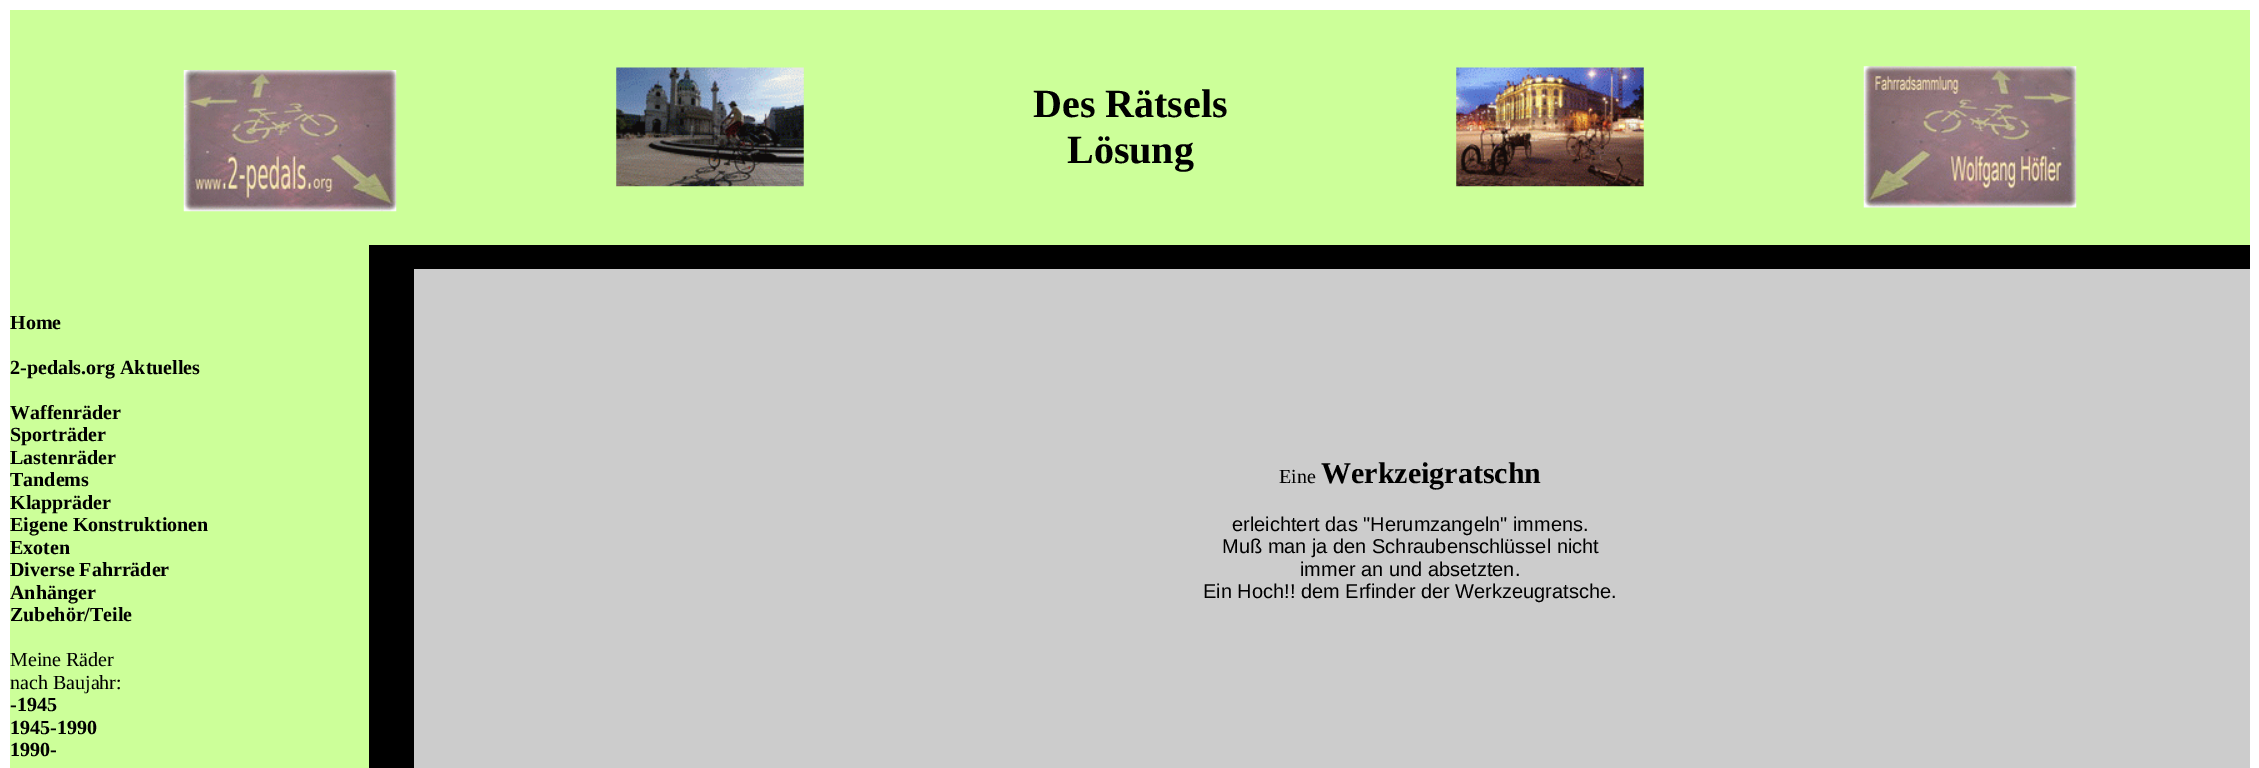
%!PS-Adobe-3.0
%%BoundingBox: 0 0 2259 768
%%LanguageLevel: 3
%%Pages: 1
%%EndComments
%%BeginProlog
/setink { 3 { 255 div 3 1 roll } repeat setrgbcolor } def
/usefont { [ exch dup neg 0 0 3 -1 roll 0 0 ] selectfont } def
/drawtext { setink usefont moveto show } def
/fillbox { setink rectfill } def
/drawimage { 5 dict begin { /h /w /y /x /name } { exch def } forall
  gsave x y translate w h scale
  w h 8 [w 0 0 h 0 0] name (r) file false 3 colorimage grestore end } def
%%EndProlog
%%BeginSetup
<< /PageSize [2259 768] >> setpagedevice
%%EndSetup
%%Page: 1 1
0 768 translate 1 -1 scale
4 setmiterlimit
0 0 2259 768 255 255 255 fillbox
10 10 2240 23 204 255 153 fillbox
10 33 2240 212 204 255 153 fillbox
(assets/img1.rgb) 183 70 214 142 drawimage
(assets/img2.rgb) 616 67 188 120 drawimage
(Des Rätsels) 1033 117 /LiberationSerif-Bold 40 0 0 0 drawtext
(Lösung) 1067 163 /LiberationSerif-Bold 40 0 0 0 drawtext
(assets/img3.rgb) 1456 67 188 120 drawimage
(assets/img4.rgb) 1863 66 214 142 drawimage
10 245 359 523 204 255 153 fillbox
369 245 1881 24 0 0 0 fillbox
369 269 45 499 0 0 0 fillbox
414 269 1836 22 204 204 204 fillbox
(Home) 10 329 /LiberationSerif-Bold 20 0 0 0 drawtext
(2-pedals.org Aktuelles) 10 374 /LiberationSerif-Bold 20 0 0 0 drawtext
(Waffenräder) 10 419 /LiberationSerif-Bold 20 0 0 0 drawtext
(Sporträder) 10 441 /LiberationSerif-Bold 20 0 0 0 drawtext
(Lastenräder) 10 464 /LiberationSerif-Bold 20 0 0 0 drawtext
(Tandems) 10 486 /LiberationSerif-Bold 20 0 0 0 drawtext
(Klappräder) 10 509 /LiberationSerif-Bold 20 0 0 0 drawtext
(Eigene Konstruktionen) 10 531 /LiberationSerif-Bold 20 0 0 0 drawtext
(Exoten) 10 554 /LiberationSerif-Bold 20 0 0 0 drawtext
(Diverse Fahrräder) 10 576 /LiberationSerif-Bold 20 0 0 0 drawtext
(Anhänger) 10 599 /LiberationSerif-Bold 20 0 0 0 drawtext
(Zubehör/Teile) 10 621 /LiberationSerif-Bold 20 0 0 0 drawtext
(Meine Räder) 10 666 /LiberationSerif-Regular 20 0 0 0 drawtext
(nach Baujahr:) 10 689 /LiberationSerif-Regular 20 0 0 0 drawtext
(-1945) 10 711 /LiberationSerif-Bold 20 0 0 0 drawtext
(1945-1990) 10 734 /LiberationSerif-Bold 20 0 0 0 drawtext
(1990-) 10 756 /LiberationSerif-Bold 20 0 0 0 drawtext
414 291 1836 477 204 204 204 fillbox
(Eine) 1279 483 /LiberationSerif-Regular 20 0 0 0 drawtext
(Werkzeigratschn) 1321 483 /LiberationSerif-Bold 30 0 0 0 drawtext
(erleichtert das "Herumzangeln" immens.) 1232 531 /LiberationSans-Regular 20 0 0 0 drawtext
(Muß man ja den Schraubenschlüssel nicht) 1222 553 /LiberationSans-Regular 20 0 0 0 drawtext
(immer an und absetzten.) 1300 576 /LiberationSans-Regular 20 0 0 0 drawtext
(Ein Hoch!! dem Erfinder der Werkzeugratsche.) 1203 598 /LiberationSans-Regular 20 0 0 0 drawtext
showpage
%%EOF
